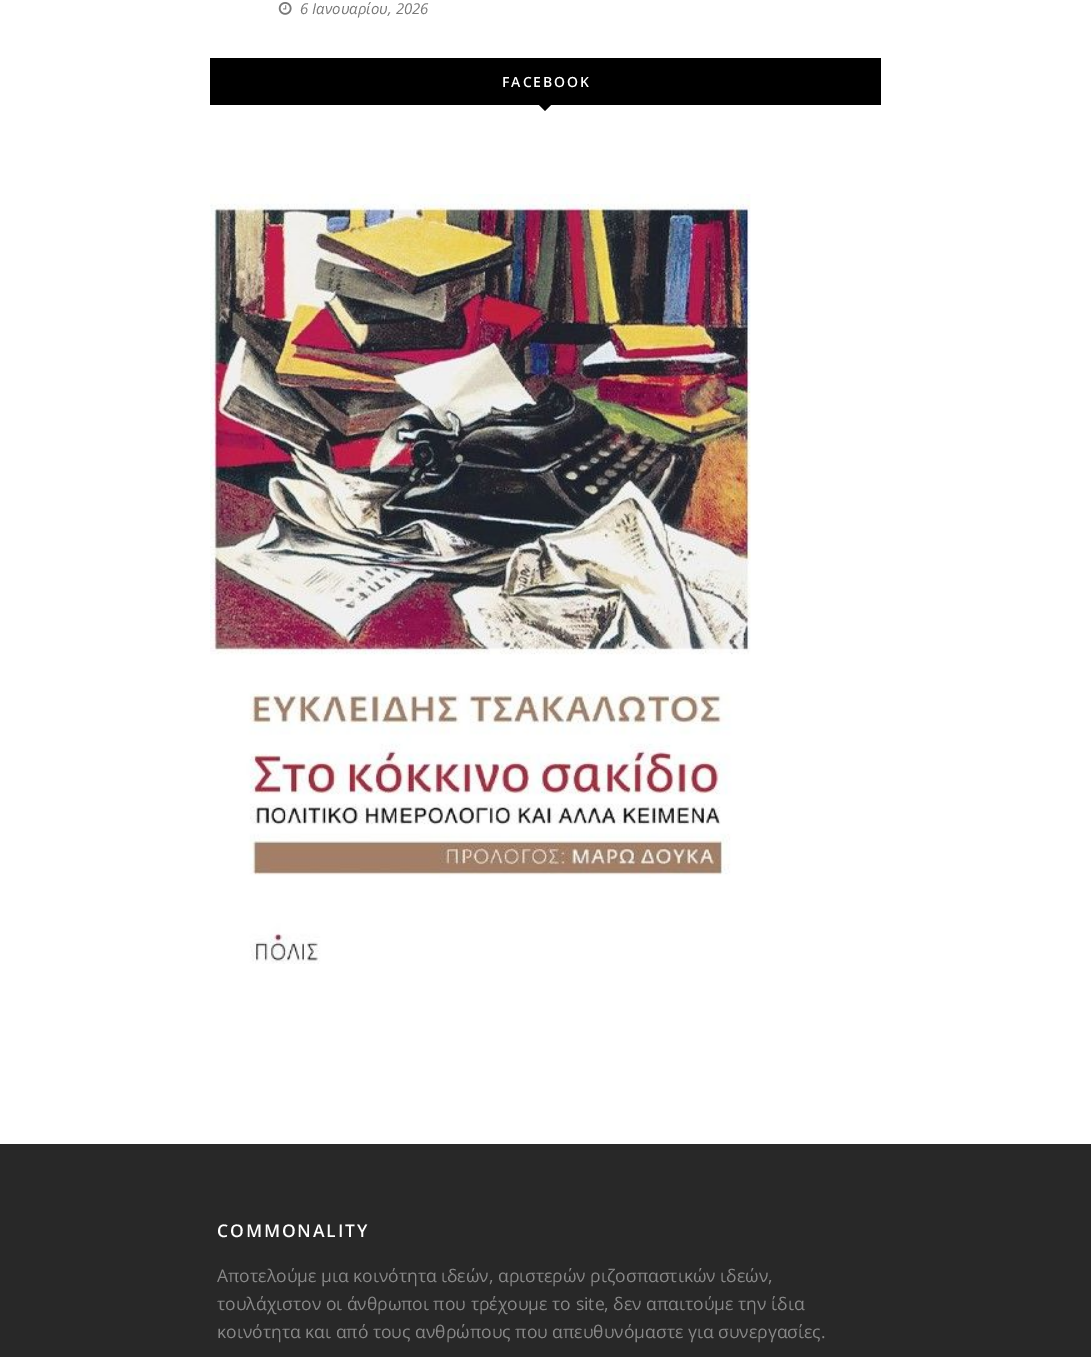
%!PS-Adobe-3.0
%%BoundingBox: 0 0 1091 1357
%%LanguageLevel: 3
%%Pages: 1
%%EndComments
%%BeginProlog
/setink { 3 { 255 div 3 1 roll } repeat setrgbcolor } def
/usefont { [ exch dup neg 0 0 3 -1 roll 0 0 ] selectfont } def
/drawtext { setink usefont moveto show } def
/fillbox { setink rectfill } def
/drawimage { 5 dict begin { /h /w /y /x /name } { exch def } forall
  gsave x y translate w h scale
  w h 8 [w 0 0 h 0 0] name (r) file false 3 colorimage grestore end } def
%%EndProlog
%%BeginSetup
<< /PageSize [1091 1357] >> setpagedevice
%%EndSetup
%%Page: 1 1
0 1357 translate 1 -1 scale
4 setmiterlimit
0 0 1091 1357 255 255 255 fillbox
(assets/img1.rgb) 278 2 14 13 drawimage
(6 Ιανουαρίου, 2026) 300 14 /OpenSans-Italic 15 120 120 120 drawtext
210 58 671 47 0 0 0 fillbox
/OpenSans-SemiBold 14 usefont
255 255 255 setink
502 87 moveto 1.9 0 (FACEBOOK) ashow
0 0 0 setink
539 105 moveto 551 105 lineto 545 111 lineto closepath fill
(assets/img2.rgb) 210 194 541 770 drawimage
0 1144 1091 213 40 40 40 fillbox
/OpenSans-SemiBold 17.5 usefont
255 255 255 setink
217 1237 moveto 1.9 0 (COMMONALITY) ashow
(Αποτελούμε μια κοινότητα ιδεών, αριστερών ριζοσπαστικών ιδεών,) 217 1282 /OpenSans-Regular 17.5 136 136 136 drawtext
(τουλάχιστον οι άνθρωποι που τρέχουμε το site, δεν απαιτούμε την ίδια) 217 1310 /OpenSans-Regular 17.5 136 136 136 drawtext
(κοινότητα και από τους ανθρώπους που απευθυνόμαστε για συνεργασίες.) 217 1338 /OpenSans-Regular 17.5 136 136 136 drawtext
showpage
%%EOF
